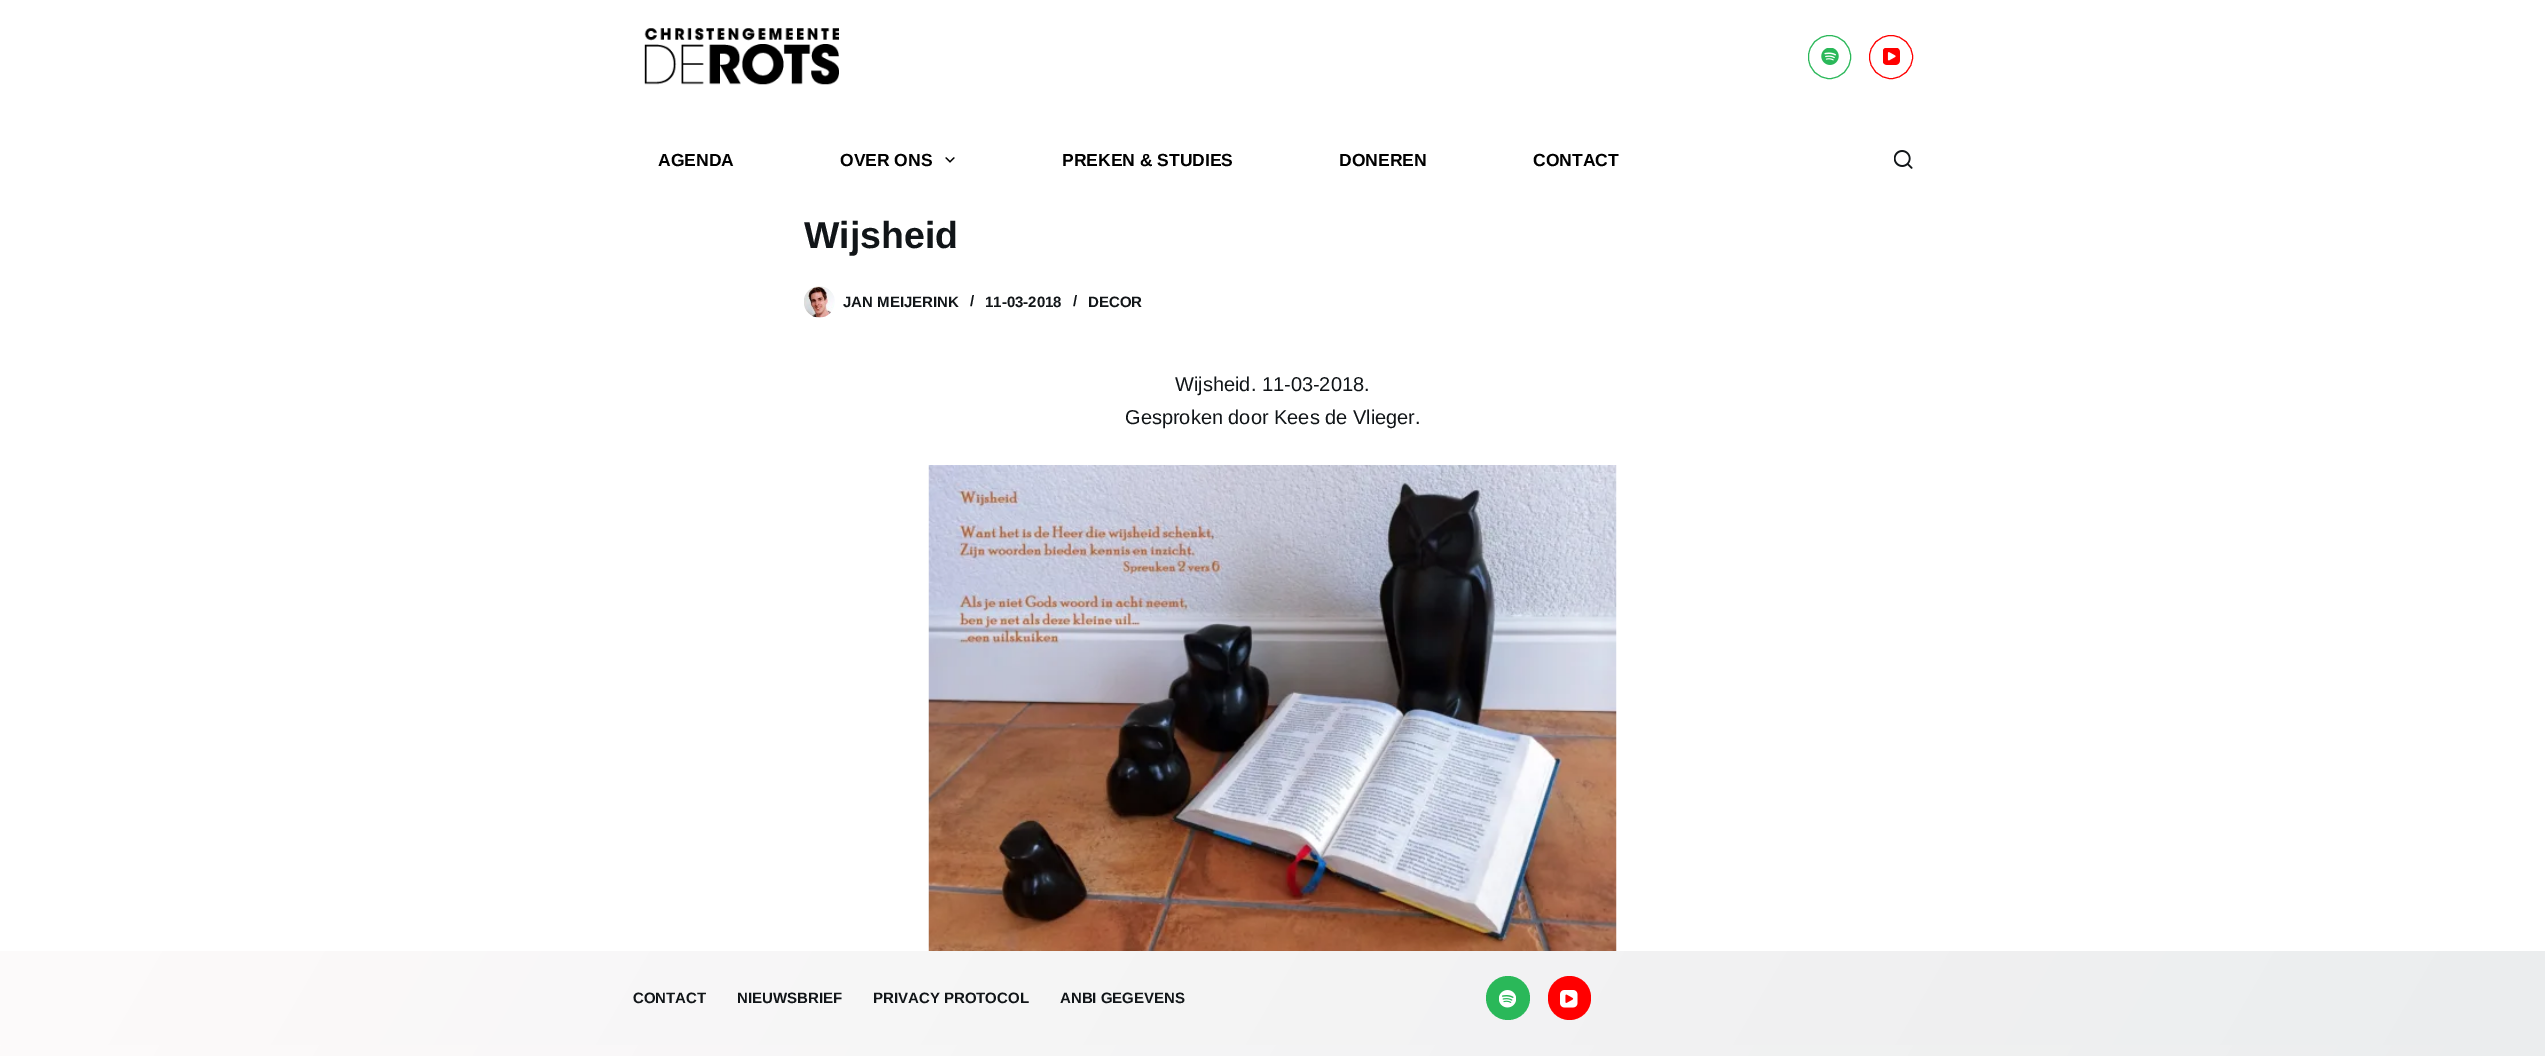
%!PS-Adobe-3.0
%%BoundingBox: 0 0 2545 1056
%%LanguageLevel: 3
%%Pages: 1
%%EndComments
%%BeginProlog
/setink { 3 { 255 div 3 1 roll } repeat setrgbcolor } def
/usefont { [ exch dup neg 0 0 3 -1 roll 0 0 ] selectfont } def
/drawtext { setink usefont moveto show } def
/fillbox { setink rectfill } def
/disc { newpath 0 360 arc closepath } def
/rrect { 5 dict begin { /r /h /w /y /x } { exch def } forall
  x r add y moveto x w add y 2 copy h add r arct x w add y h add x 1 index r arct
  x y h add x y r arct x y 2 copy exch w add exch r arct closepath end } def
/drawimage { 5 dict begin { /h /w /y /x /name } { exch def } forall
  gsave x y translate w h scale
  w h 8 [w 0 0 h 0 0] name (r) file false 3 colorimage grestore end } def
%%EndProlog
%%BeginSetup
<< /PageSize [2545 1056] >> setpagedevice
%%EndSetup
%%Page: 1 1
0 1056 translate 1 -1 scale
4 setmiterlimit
0 0 2545 1056 255 255 255 fillbox
(assets/img1.rgb) 644 28 195 57 drawimage
42 184 89 setink
1808.5 35.5 42 43 21 rrect stroke
(assets/img2.rgb) 1821 48 18 17 drawimage
255 0 0 setink
1891 57 21.5 disc stroke
(assets/img3.rgb) 1883 48 17 17 drawimage
(AGENDA) 658 166 /LiberationSans-Bold 17.5 0 0 0 drawtext
(OVER ONS) 840 166 /LiberationSans-Bold 17.5 0 0 0 drawtext
(assets/img4.rgb) 945 157 10 6 drawimage
(PREKEN & STUDIES) 1062 166 /LiberationSans-Bold 17.5 0 0 0 drawtext
(DONEREN) 1339 166 /LiberationSans-Bold 17.5 0 0 0 drawtext
(CONTACT) 1533 166 /LiberationSans-Bold 17.5 0 0 0 drawtext
(assets/img5.rgb) 1894 150 19 19 drawimage
(Wijsheid) 804 248 /LiberationSans-Bold 37.5 17 21 24 drawtext
(assets/img6.rgb) 804 286 31 32 drawimage
(JAN MEIJERINK) 843 307 /LiberationSans-Bold 15 17 21 24 drawtext
(/) 970 306 /LiberationSans-Bold 15 17 21 24 drawtext
(11-03-2018) 985 307 /LiberationSans-Bold 15 17 21 24 drawtext
(/) 1073 306 /LiberationSans-Bold 15 17 21 24 drawtext
(DECOR) 1088 307 /LiberationSans-Bold 15 17 21 24 drawtext
(Wijsheid. 11-03-2018.) 1175 391 /LiberationSans-Regular 20 17 21 24 drawtext
(Gesproken door Kees de Vlieger.) 1125 424 /LiberationSans-Regular 20 17 21 24 drawtext
(assets/img7.rgb) 928 465 689 486 drawimage
gsave 0 951 moveto 2545 951 lineto 2545 1045 lineto 0 1045 lineto closepath clip newpath
<< /ShadingType 2 /ColorSpace /DeviceRGB /Coords [298 435 2247 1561] /Extend [true true] /Function << /FunctionType 2 /Domain [0 1] /C0 [0.992 0.984 0.984] /C1 [0.922 0.929 0.933] /N 1 >> >> shfill grestore
(CONTACT) 633 1003 /LiberationSans-Bold 15 17 21 24 drawtext
(NIEUWSBRIEF) 737 1003 /LiberationSans-Bold 15 17 21 24 drawtext
(PRIVACY PROTOCOL) 873 1003 /LiberationSans-Bold 15 17 21 24 drawtext
(ANBI GEGEVENS) 1060 1003 /LiberationSans-Bold 15 17 21 24 drawtext
42 184 89 setink
1508 998 22 disc fill
(assets/img8.rgb) 1499 990 17 18 drawimage
255 0 0 setink
1548 976 43 44 21.5 rrect fill
(assets/img9.rgb) 1560 990 18 18 drawimage
gsave 0 1045 moveto 2545 1045 lineto 2545 1056 lineto 0 1056 lineto closepath clip newpath
<< /ShadingType 2 /ColorSpace /DeviceRGB /Coords [302 522 2243 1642] /Extend [true true] /Function << /FunctionType 2 /Domain [0 1] /C0 [0.992 0.984 0.984] /C1 [0.922 0.929 0.933] /N 1 >> >> shfill grestore
showpage
%%EOF
